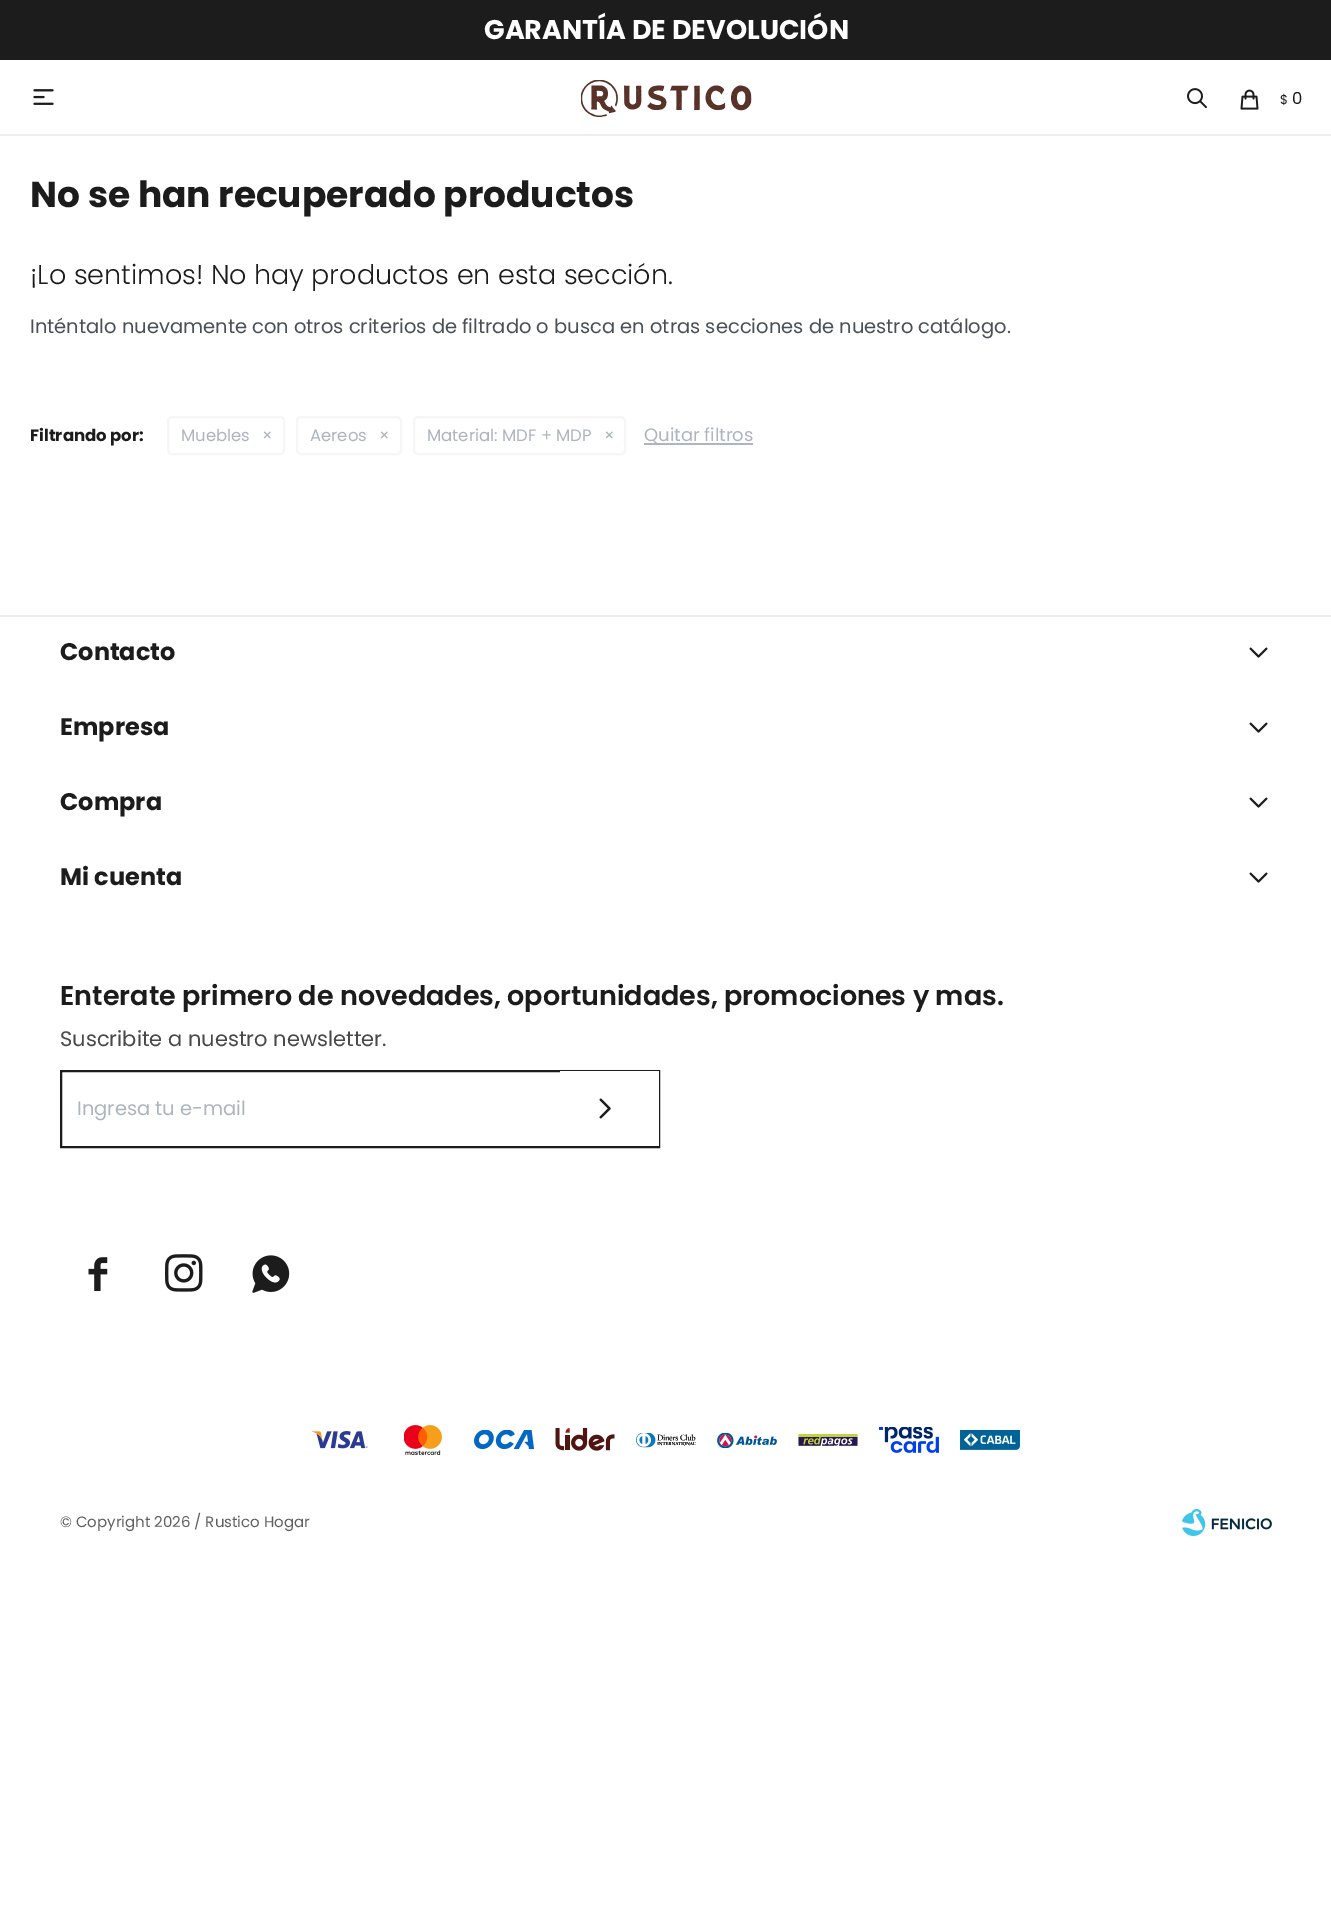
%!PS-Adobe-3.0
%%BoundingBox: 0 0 1331 1907
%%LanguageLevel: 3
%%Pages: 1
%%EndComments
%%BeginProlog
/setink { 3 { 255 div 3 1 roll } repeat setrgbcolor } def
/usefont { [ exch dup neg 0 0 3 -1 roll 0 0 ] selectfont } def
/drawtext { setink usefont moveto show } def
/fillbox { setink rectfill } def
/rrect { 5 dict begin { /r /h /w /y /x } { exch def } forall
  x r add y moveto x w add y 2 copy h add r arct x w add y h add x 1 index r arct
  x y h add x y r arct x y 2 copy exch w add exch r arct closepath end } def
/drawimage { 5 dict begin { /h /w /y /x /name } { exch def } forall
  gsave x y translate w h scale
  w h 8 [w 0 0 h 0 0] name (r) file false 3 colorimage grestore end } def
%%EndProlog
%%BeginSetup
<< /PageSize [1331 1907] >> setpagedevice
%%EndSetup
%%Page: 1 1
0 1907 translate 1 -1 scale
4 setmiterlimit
0 0 1331 1907 255 255 255 fillbox
0 0 1331 60 29 28 29 fillbox
(GARANTÍA DE DEVOLUCIÓN) 484 39 /Poppins-Bold 27 255 255 255 drawtext
(assets/img1.rgb) 33 89 21 16 drawimage
(assets/img2.rgb) 581 80 171 37 drawimage
(assets/img3.rgb) 1187 88 20 21 drawimage
(assets/img4.rgb) 1240 89 19 21 drawimage
($) 1280 104 /Poppins-Regular 13 29 28 29 drawtext
(0) 1292 104 /Poppins-Regular 16.5 29 28 29 drawtext
0 134 1331 2 237 237 237 fillbox
(No se han recuperado productos) 30 207 /Poppins-Bold 36 29 28 29 drawtext
(¡Lo sentimos! No hay productos en esta sección.) 30 284 /Poppins-Light 27 29 28 29 drawtext
(Inténtalo nuevamente con otros criterios de filtrado o busca en otras secciones de nuestro catálogo.) 30 333 /Poppins-Regular 19.5 73 80 87 drawtext
(Filtrando por:) 30 441 /Poppins-Bold 16.5 29 28 29 drawtext
246 246 246 setink
2 setlinewidth
168 417 116 37 4 rrect stroke
(Muebles) 181 441 /Poppins-Regular 16.5 173 181 189 drawtext
(×) 262 441 /Poppins-Regular 16.5 173 181 189 drawtext
246 246 246 setink
297 417 104 37 4 rrect stroke
(Aereos) 310 441 /Poppins-Regular 16.5 173 181 189 drawtext
(×) 379 441 /Poppins-Regular 16.5 173 181 189 drawtext
246 246 246 setink
414 417 211 37 4 rrect stroke
(Material: MDF + MDP) 427 441 /Poppins-Regular 16.5 173 181 189 drawtext
(×) 604 441 /Poppins-Regular 16.5 173 181 189 drawtext
644 443 109 2 173 181 189 fillbox
(Quitar filtros) 644 441 /Poppins-Regular 18 173 181 189 drawtext
0 615 1331 2 237 237 237 fillbox
(Contacto) 60 660 /Poppins-Bold 24 29 28 29 drawtext
(assets/img5.rgb) 1249 647 19 11 drawimage
(Empresa) 60 735 /Poppins-Bold 24 29 28 29 drawtext
(assets/img5.rgb) 1249 722 19 11 drawimage
(Compra) 60 810 /Poppins-Bold 24 29 28 29 drawtext
(assets/img5.rgb) 1249 797 19 11 drawimage
(Mi cuenta) 60 885 /Poppins-Bold 24 29 28 29 drawtext
(assets/img5.rgb) 1249 872 19 11 drawimage
(Enterate primero de novedades, oportunidades, promociones y mas.) 60 1005 /Poppins-SemiBold 27 29 28 29 drawtext
(Suscribite a nuestro newsletter.) 60 1046 /Poppins-Regular 21 74 73 74 drawtext
29 28 29 setink
61 1071 598 76 rectstroke
(Ingresa tu e-mail) 77 1115 /Poppins-Regular 19.5 173 181 189 drawtext
560 1071 99 75 255 255 255 fillbox
(assets/img6.rgb) 599 1098 12 21 drawimage
(assets/img7.rgb) 88 1257 20 34 drawimage
(assets/img8.rgb) 165 1254 38 38 drawimage
(assets/img9.rgb) 252 1255 38 38 drawimage
(assets/img10.rgb) 312 1431 56 18 drawimage
(assets/img11.rgb) 404 1425 38 30 drawimage
(assets/img12.rgb) 474 1430 60 20 drawimage
(assets/img13.rgb) 555 1428 60 23 drawimage
(assets/img14.rgb) 636 1433 60 15 drawimage
(assets/img15.rgb) 717 1433 60 15 drawimage
(assets/img16.rgb) 798 1434 60 12 drawimage
(assets/img17.rgb) 879 1427 60 26 drawimage
(assets/img18.rgb) 960 1430 60 20 drawimage
(© Copyright 2026 / Rustico Hogar) 60 1527 /Poppins-Regular 15 97 96 97 drawtext
(assets/img19.rgb) 1182 1509 90 27 drawimage
showpage
%%EOF
